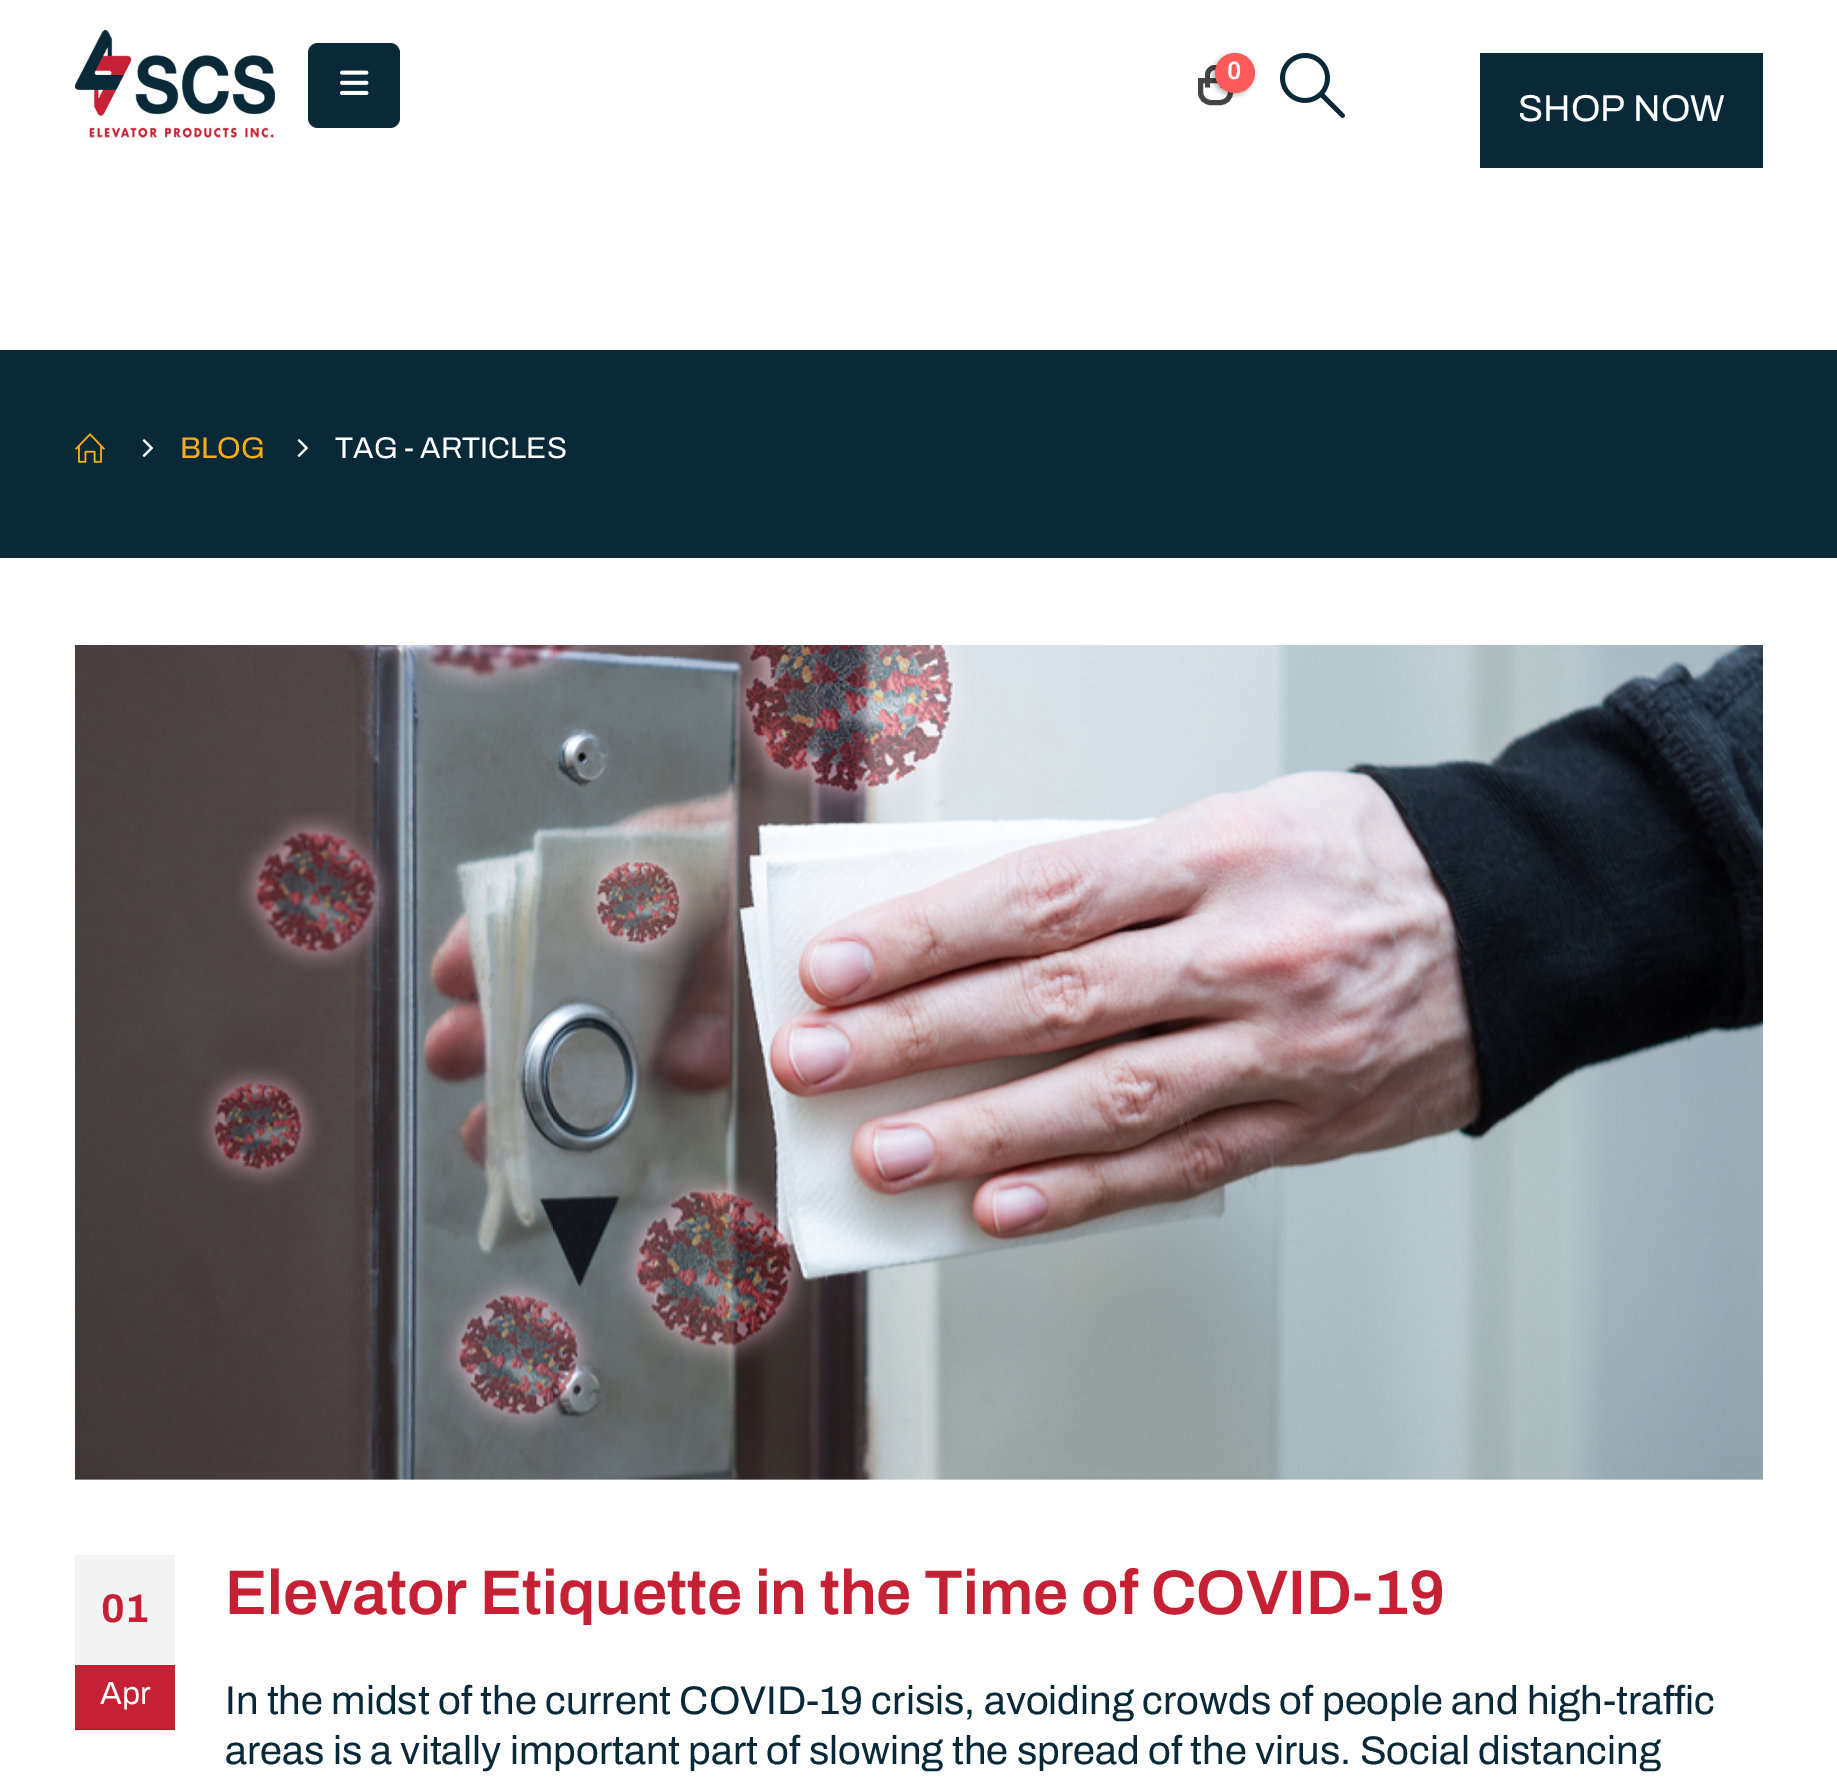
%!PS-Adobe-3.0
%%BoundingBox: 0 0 1837 1778
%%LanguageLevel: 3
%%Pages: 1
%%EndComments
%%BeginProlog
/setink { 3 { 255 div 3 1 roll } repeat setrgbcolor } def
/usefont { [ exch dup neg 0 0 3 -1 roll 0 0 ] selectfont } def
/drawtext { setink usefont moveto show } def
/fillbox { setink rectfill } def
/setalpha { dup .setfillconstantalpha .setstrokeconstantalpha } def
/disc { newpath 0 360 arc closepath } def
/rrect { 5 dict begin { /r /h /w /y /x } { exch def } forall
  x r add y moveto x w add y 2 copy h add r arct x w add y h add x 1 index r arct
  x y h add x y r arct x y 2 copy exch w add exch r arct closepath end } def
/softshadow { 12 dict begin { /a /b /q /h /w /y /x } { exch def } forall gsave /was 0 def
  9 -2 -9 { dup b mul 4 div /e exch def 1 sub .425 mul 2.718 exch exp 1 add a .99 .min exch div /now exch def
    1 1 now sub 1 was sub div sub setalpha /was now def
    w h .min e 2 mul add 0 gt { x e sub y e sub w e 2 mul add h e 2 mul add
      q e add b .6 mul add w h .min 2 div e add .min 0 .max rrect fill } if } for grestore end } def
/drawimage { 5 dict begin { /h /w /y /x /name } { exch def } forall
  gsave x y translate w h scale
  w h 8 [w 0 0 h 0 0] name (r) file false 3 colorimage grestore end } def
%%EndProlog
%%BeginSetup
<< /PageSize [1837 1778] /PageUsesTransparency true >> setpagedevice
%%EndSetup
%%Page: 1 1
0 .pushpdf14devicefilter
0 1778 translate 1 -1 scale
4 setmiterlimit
0 0 1837 1778 255 255 255 fillbox
75 1730 100 1 237 237 237 fillbox
(assets/img1.rgb) 75 30 200 108 drawimage
9 41 57 setink
308 43 92 85 10 rrect fill
(assets/img2.rgb) 340 70 29 25 drawimage
68 68 68 setink
5 setlinewidth
1200.5 80.5 moveto 1230.5 80.5 lineto 1230.5 92 lineto 1230.5 98 1226 102.5 1220 102.5 curveto 1211 102.5 lineto 1205 102.5 1200.5 98 1200.5 92 curveto closepath stroke
1215 65 moveto 1220.5 65 1225 69.5 1225 75 curveto 1225 87.5 lineto 1205 87.5 lineto 1205 75 lineto 1205 69.5 1209.5 65 1215 65 curveto closepath 1215 70 moveto 1218 70 1220 72 1220 75 curveto 1220 87.5 lineto 1210 87.5 lineto 1210 75 lineto 1210 72 1212 70 1215 70 curveto closepath eofill
0 0 0 setink
1213 55 40 40 20 2.5 0.3 softshadow
255 91 91 setink
1235 73 20 disc fill
(0) 1227 79 /Archivo-SemiBold 25 255 255 255 drawtext
(assets/img3.rgb) 1280 53 65 65 drawimage
1480 53 283 115 9 41 57 fillbox
(SHOP NOW) 1518 121 /Archivo-Regular 37.5 255 255 255 drawtext
0 350 1837 208 9 41 57 fillbox
(assets/img4.rgb) 75 433 30 30 drawimage
(assets/img5.rgb) 142 439 11 18 drawimage
(BLOG) 180 458 /Archivo-Regular 30 251 173 24 drawtext
(assets/img5.rgb) 297 439 11 18 drawimage
(TAG - ARTICLES) 335 458 /Archivo-Regular 30 255 255 255 drawtext
(assets/img6.rgb) 75 645 1688 835 drawimage
75 1555 100 110 244 244 244 fillbox
(01) 101 1622 /Archivo-Bold 40 197 32 51 drawtext
75 1665 100 63 197 32 51 fillbox
75 1728 100 2 183 30 47 fillbox
(Apr) 100 1704 /Archivo-Regular 32 255 255 255 drawtext
(Elevator Etiquette in the Time of COVID-19) 225 1614 /Archivo-SemiBold 63 197 32 51 drawtext
(In the midst of the current COVID-19 crisis, avoiding crowds of people and high-traffic) 225 1714 /Archivo-Regular 40 9 41 57 drawtext
(areas is a vitally important part of slowing the spread of the virus. Social distancing) 225 1764 /Archivo-Regular 40 9 41 57 drawtext
.poppdf14devicefilter showpage
%%EOF
